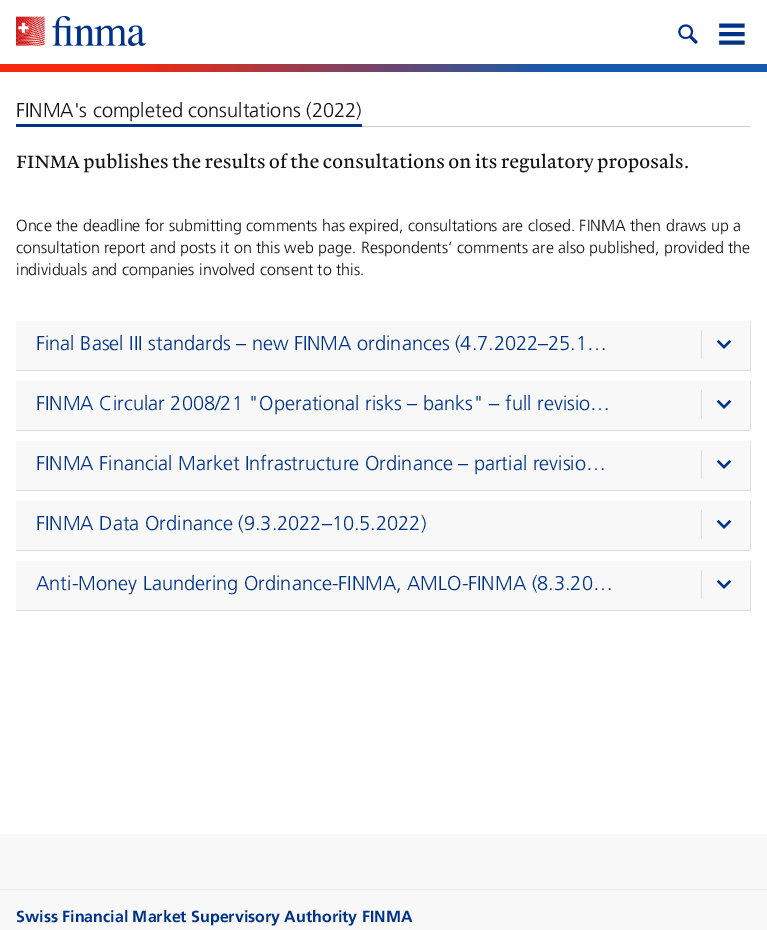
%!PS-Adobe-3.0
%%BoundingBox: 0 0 767 930
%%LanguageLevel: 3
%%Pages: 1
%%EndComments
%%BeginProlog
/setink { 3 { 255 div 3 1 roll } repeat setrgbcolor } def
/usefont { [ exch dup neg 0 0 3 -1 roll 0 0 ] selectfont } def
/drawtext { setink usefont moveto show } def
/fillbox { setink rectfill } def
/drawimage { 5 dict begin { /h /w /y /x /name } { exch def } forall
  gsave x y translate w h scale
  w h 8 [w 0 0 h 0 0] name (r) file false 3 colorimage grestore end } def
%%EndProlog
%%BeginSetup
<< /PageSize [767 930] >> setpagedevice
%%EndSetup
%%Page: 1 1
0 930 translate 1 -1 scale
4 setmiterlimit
0 0 767 930 248 248 248 fillbox
0 0 767 64 255 255 255 fillbox
(assets/img1.rgb) 16 16 130 30 drawimage
(assets/img2.rgb) 678 24 20 20 drawimage
(assets/img3.rgb) 719 23 26 22 drawimage
0 72 767 762 255 255 255 fillbox
gsave 0 64 moveto 767 64 lineto 767 72 lineto 0 72 lineto closepath clip newpath
<< /ShadingType 2 /ColorSpace /DeviceRGB /Coords [190 -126 577 262] /Extend [true true] /Function << /FunctionType 3 /Domain [0 1] /Functions [<< /FunctionType 2 /Domain [0 1] /C0 [0.965 0.161 0.055] /C1 [0.965 0.161 0.055] /N 1 >> << /FunctionType 2 /Domain [0 1] /C0 [0.965 0.161 0.055] /C1 [0.086 0.353 0.678] /N 1 >> << /FunctionType 2 /Domain [0 1] /C0 [0.086 0.353 0.678] /C1 [0.086 0.353 0.678] /N 1 >>] /Bounds [0.17 0.72] /Encode [0 1 0 1 0 1] >> >> shfill grestore
362 126 389 1 204 204 204 fillbox
16 124 346 3 0 51 136 fillbox
(FINMA's completed consultations \(2022\)) 16 117 /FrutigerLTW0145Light-Light 20 17 17 17 drawtext
(assets/img4.rgb) 16 153 672 20 drawimage
(Once the deadline for submitting comments has expired, consultations are closed. FINMA then draws up a) 16 231 /FrutigerLTW0145Light-Light 16 17 17 17 drawtext
(consultation report and posts it on this web page. Respondents’ comments are also published, provided the) 16 253 /FrutigerLTW0145Light-Light 16 17 17 17 drawtext
(individuals and companies involved consent to this.) 16 275 /FrutigerLTW0145Light-Light 16 17 17 17 drawtext
16 321 734 49 248 248 248 fillbox
750 321 1 50 221 221 221 fillbox
16 370 735 1 221 221 221 fillbox
(Final Basel III standards – new FINMA ordinances \(4.7.2022–25.1…) 36 350 /FrutigerLTW0145Light-Light 20 0 51 136 drawtext
701 330 1 29 221 221 221 fillbox
(assets/img5.rgb) 716 339 16 10 drawimage
16 381 734 49 248 248 248 fillbox
750 381 1 50 221 221 221 fillbox
16 430 735 1 221 221 221 fillbox
(FINMA Circular 2008/21 "Operational risks – banks" – full revisio…) 36 410 /FrutigerLTW0145Light-Light 20 0 51 136 drawtext
701 390 1 29 221 221 221 fillbox
(assets/img5.rgb) 716 399 16 10 drawimage
16 441 734 49 248 248 248 fillbox
750 441 1 50 221 221 221 fillbox
16 490 735 1 221 221 221 fillbox
(FINMA Financial Market Infrastructure Ordinance – partial revisio…) 36 470 /FrutigerLTW0145Light-Light 20 0 51 136 drawtext
701 450 1 29 221 221 221 fillbox
(assets/img5.rgb) 716 459 16 10 drawimage
16 501 734 49 248 248 248 fillbox
750 501 1 50 221 221 221 fillbox
16 550 735 1 221 221 221 fillbox
(FINMA Data Ordinance \(9.3.2022–10.5.2022\)) 36 530 /FrutigerLTW0145Light-Light 20 0 51 136 drawtext
701 510 1 29 221 221 221 fillbox
(assets/img5.rgb) 716 519 16 10 drawimage
16 561 734 49 248 248 248 fillbox
750 561 1 50 221 221 221 fillbox
16 610 735 1 221 221 221 fillbox
(Anti-Money Laundering Ordinance-FINMA, AMLO-FINMA \(8.3.20…) 36 590 /FrutigerLTW0145Light-Light 20 0 51 136 drawtext
701 570 1 29 221 221 221 fillbox
(assets/img5.rgb) 716 579 16 10 drawimage
0 889 767 1 239 239 239 fillbox
(Swiss Financial Market Supervisory Authority FINMA) 16 922 /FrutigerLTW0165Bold-Bold 16 0 51 136 drawtext
showpage
%%EOF
